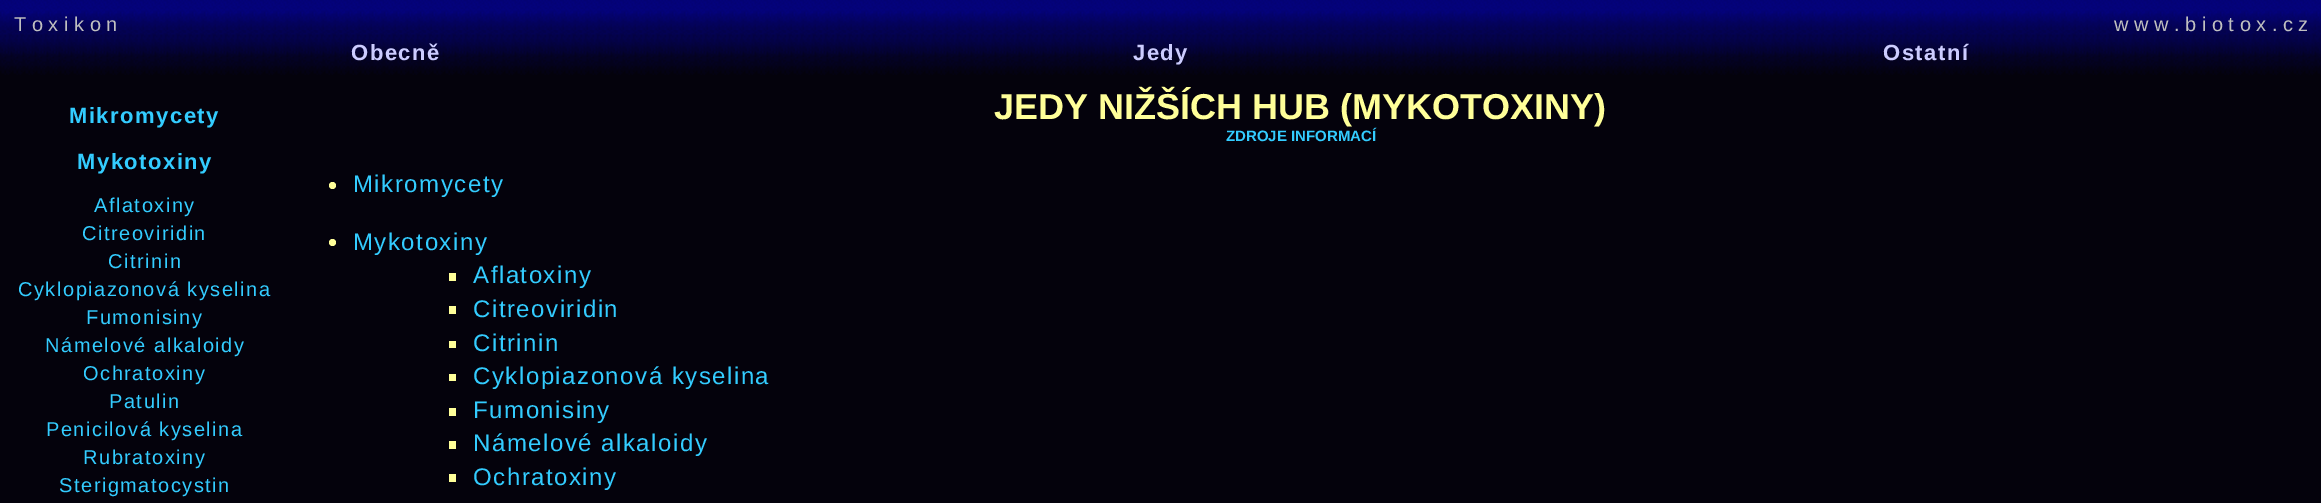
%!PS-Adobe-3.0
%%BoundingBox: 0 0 2321 503
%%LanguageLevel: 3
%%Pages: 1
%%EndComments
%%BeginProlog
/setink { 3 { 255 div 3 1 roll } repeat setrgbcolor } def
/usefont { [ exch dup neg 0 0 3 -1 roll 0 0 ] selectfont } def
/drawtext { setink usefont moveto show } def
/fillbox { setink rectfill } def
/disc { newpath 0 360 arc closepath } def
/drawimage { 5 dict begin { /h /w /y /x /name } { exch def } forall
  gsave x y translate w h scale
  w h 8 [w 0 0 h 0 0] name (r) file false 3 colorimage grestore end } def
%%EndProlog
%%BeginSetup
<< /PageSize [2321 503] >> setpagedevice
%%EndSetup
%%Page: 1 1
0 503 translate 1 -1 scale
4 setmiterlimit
0 0 2321 503 4 2 12 fillbox
(assets/img1.rgb) 0 0 2321 75 drawimage
(T o x i k o n) 14 31 /LiberationSans-Regular 20 192 192 192 drawtext
(w w w . b i o t o x . c z) 2114 31 /LiberationSans-Regular 20 192 192 192 drawtext
/LiberationSans-Bold 22 usefont
204 204 255 setink
351 60 moveto 1.5 0 (Obecně) ashow
1133 60 moveto 1.5 0 (Jedy) ashow
1883 60 moveto 1.5 0 (Ostatní) ashow
51 204 255 setink
69 123 moveto 1.5 0 (Mikromycety) ashow
77 169 moveto 1.5 0 (Mykotoxiny) ashow
/LiberationSans-Regular 20 usefont
94 212 moveto 1.5 0 (Aflatoxiny) ashow
82 240 moveto 1.5 0 (Citreoviridin) ashow
108 268 moveto 1.5 0 (Citrinin) ashow
18 296 moveto 1.5 0 (Cyklopiazonová kyselina) ashow
86 324 moveto 1.5 0 (Fumonisiny) ashow
45 352 moveto 1.5 0 (Námelové alkaloidy) ashow
83 380 moveto 1.5 0 (Ochratoxiny) ashow
109 408 moveto 1.5 0 (Patulin) ashow
46 436 moveto 1.5 0 (Penicilová kyselina) ashow
83 464 moveto 1.5 0 (Rubratoxiny) ashow
59 492 moveto 1.5 0 (Sterigmatocystin) ashow
(JEDY NIŽŠÍCH HUB \(MYKOTOXINY\)) 994 119 /LiberationSans-Bold 36 255 255 153 drawtext
(ZDROJE INFORMACÍ) 1226 141 /LiberationSans-Bold 15 51 204 255 drawtext
255 255 153 setink
332.5 185.5 3.5 disc fill
/LiberationSans-Regular 24 usefont
51 204 255 setink
353 192 moveto 1.5 0 (Mikromycety) ashow
255 255 153 setink
332.5 242.5 3.5 disc fill
51 204 255 setink
353 250 moveto 1.5 0 (Mykotoxiny) ashow
449 273 7 8 255 255 153 fillbox
51 204 255 setink
473 283 moveto 1.5 0 (Aflatoxiny) ashow
449 306 7 8 255 255 153 fillbox
51 204 255 setink
473 317 moveto 1.5 0 (Citreoviridin) ashow
449 341 7 7 255 255 153 fillbox
51 204 255 setink
473 351 moveto 1.5 0 (Citrinin) ashow
449 374 7 7 255 255 153 fillbox
51 204 255 setink
473 384 moveto 1.5 0 (Cyklopiazonová kyselina) ashow
449 408 7 8 255 255 153 fillbox
51 204 255 setink
473 418 moveto 1.5 0 (Fumonisiny) ashow
449 441 7 8 255 255 153 fillbox
51 204 255 setink
473 451 moveto 1.5 0 (Námelové alkaloidy) ashow
449 474 7 8 255 255 153 fillbox
51 204 255 setink
473 485 moveto 1.5 0 (Ochratoxiny) ashow
showpage
%%EOF
